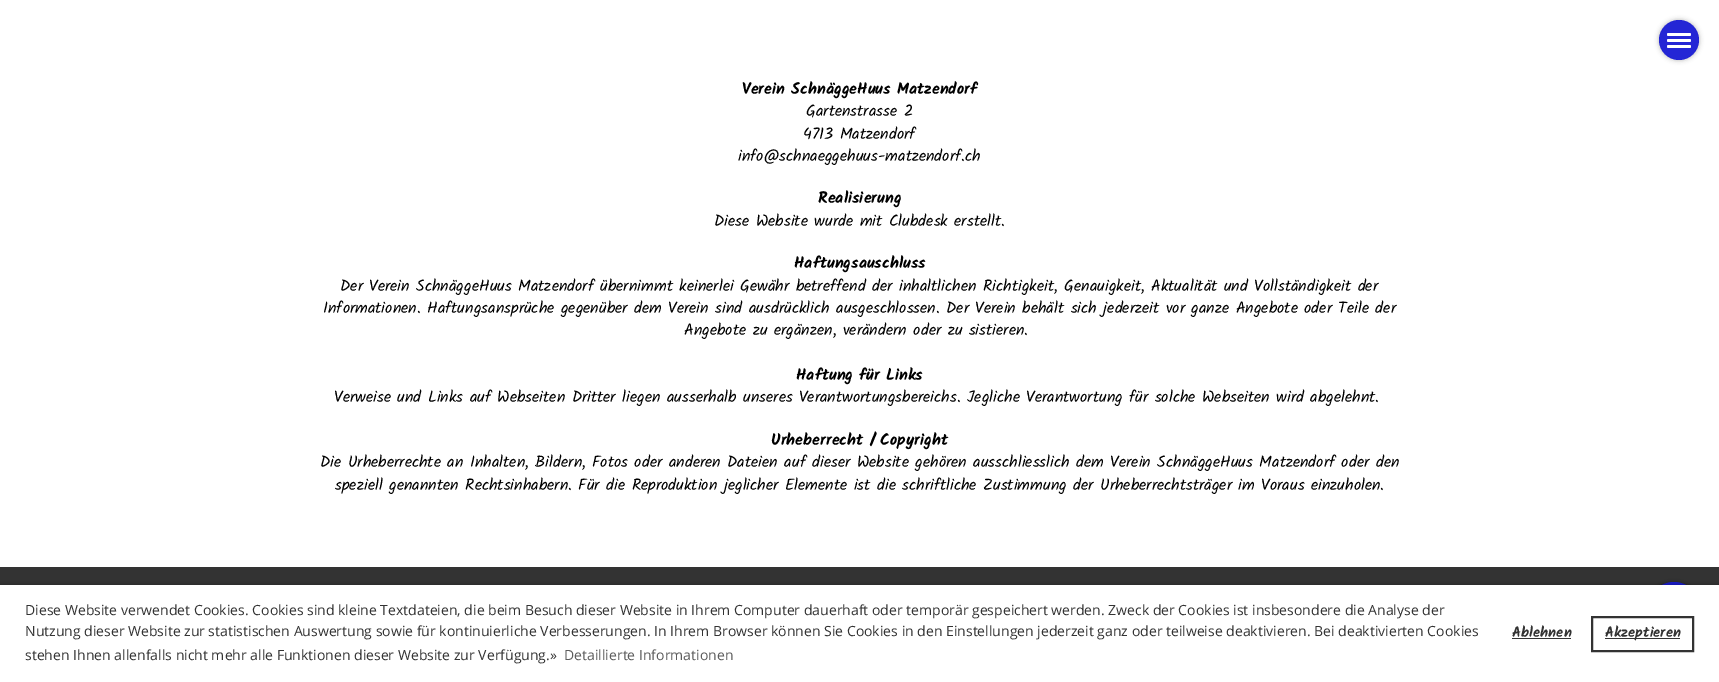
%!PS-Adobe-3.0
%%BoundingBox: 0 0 1719 682
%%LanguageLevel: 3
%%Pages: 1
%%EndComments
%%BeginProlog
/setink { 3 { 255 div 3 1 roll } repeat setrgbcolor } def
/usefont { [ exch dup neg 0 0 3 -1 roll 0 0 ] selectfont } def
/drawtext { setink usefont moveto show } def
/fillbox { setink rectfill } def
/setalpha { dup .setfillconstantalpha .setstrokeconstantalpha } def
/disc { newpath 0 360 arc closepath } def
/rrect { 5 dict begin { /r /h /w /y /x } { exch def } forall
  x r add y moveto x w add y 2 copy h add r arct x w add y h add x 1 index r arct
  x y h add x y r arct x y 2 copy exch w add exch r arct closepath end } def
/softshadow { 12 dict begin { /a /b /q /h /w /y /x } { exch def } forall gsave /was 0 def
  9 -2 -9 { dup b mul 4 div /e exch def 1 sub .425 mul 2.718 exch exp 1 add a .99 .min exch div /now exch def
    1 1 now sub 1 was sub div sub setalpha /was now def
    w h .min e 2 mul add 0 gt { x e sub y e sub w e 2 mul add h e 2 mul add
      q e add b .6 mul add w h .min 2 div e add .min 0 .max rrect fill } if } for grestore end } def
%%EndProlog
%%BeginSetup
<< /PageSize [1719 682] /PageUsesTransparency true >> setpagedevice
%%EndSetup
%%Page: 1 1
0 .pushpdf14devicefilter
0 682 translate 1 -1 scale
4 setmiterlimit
0 0 1719 682 255 255 255 fillbox
gsave
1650 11 moveto 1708 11 lineto 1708 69 lineto 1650 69 lineto closepath 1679 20 moveto 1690 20 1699 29 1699 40 curveto 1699 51 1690 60 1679 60 curveto 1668 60 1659 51 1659 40 curveto 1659 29 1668 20 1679 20 curveto closepath eoclip newpath
0 0 0 setink
1659 20 40 40 20 2.5 0.3 softshadow
grestore
0.95 setalpha
24 26 211 setink
1679 40 20 disc fill
1 setalpha
255 255 255 setink
1667 33 24 3 1.5 rrect fill
1667 39 24 3 1.5 rrect fill
1667 45 24 3 1.5 rrect fill
(Verein SchnäggeHuus Matzendorf) 742 94 /Kalam-Bold 16 0 0 0 drawtext
(Gartenstrasse 2) 806 116 /Kalam-Regular 16 0 0 0 drawtext
(4713 Matzendorf) 803 139 /Kalam-Regular 16 0 0 0 drawtext
(info@schnaeggehuus-matzendorf.ch) 738 161 /Kalam-Regular 16 0 0 0 drawtext
(Realisierung) 818 203 /Kalam-Bold 16 0 0 0 drawtext
(Diese Website wurde mit Clubdesk erstellt.) 714 226 /Kalam-Regular 16 0 0 0 drawtext
(Haftungsauschluss) 794 268 /Kalam-Bold 16 0 0 0 drawtext
(Der Verein SchnäggeHuus Matzendorf übernimmt keinerlei Gewähr betreffend der inhaltlichen Richtigkeit, Genauigkeit, Aktualität und Vollständigkeit der) 340 291 /Kalam-Regular 16 0 0 0 drawtext
(Informationen. Haftungsansprüche gegenüber dem Verein sind ausdrücklich ausgeschlossen. Der Verein behält sich jederzeit vor ganze Angebote oder Teile der) 323 313 /Kalam-Regular 16 0 0 0 drawtext
(Angebote zu ergänzen, verändern oder zu sistieren.) 684 335 /Kalam-Regular 16 0 0 0 drawtext
(Haftung für Links) 796 380 /Kalam-Bold 16 0 0 0 drawtext
(Verweise und Links auf Webseiten Dritter liegen ausserhalb unseres Verantwortungsbereichs. Jegliche Verantwortung für solche Webseiten wird abgelehnt.) 334 402 /Kalam-Regular 16 0 0 0 drawtext
(Urheberrecht / Copyright) 771 445 /Kalam-Bold 16 0 0 0 drawtext
(Die Urheberrechte an Inhalten, Bildern, Fotos oder anderen Dateien auf dieser Website gehören ausschliesslich dem Verein SchnäggeHuus Matzendorf oder den) 320 467 /Kalam-Regular 16 0 0 0 drawtext
(speziell genannten Rechtsinhabern. Für die Reproduktion jeglicher Elemente ist die schriftliche Zustimmung der Urheberrechtsträger im Voraus einzuholen.) 335 490 /Kalam-Regular 16 0 0 0 drawtext
0 567 1719 18 51 51 51 fillbox
gsave
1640 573 moveto 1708 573 lineto 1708 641 lineto 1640 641 lineto closepath 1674 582 moveto 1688 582 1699 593 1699 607 curveto 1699 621 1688 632 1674 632 curveto 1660 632 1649 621 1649 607 curveto 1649 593 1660 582 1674 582 curveto closepath eoclip newpath
0 0 0 setink
1649 582 50 50 25 2.5 0.3 softshadow
grestore
0.95 setalpha
24 26 211 setink
1674 607 25 disc fill
1 setalpha
0 0 0 setink
0 585 1719 97 0 2.5 0.3 softshadow
0 585 1719 97 255 255 255 fillbox
(Diese Website verwendet Cookies. Cookies sind kleine Textdateien, die beim Besuch dieser Website in Ihrem Computer dauerhaft oder temporär gespeichert werden. Zweck der Cookies ist insbesondere die Analyse der) 25 615 /OpenSans-Regular 14 51 51 51 drawtext
(Nutzung dieser Website zur statistischen Auswertung sowie für kontinuierliche Verbesserungen. In Ihrem Browser können Sie Cookies in den Einstellungen jederzeit ganz oder teilweise deaktivieren. Bei deaktivierten Cookies) 25 636 /OpenSans-Regular 14 51 51 51 drawtext
(stehen Ihnen allenfalls nicht mehr alle Funktionen dieser Website zur Verfügung.») 25 660 /OpenSans-Regular 14 51 51 51 drawtext
(Detaillierte Informationen) 564 660 /OpenSans-Regular 14 92 92 92 drawtext
(Ablehnen) 1512 637 /Kalam-Bold 14.5 51 51 51 drawtext
1512 638 59 1 51 51 51 fillbox
2 setlinewidth
1592 617 101 34 rectstroke
1605 638 75 1 51 51 51 fillbox
(Akzeptieren) 1605 637 /Kalam-Bold 14.5 51 51 51 drawtext
.poppdf14devicefilter showpage
%%EOF
